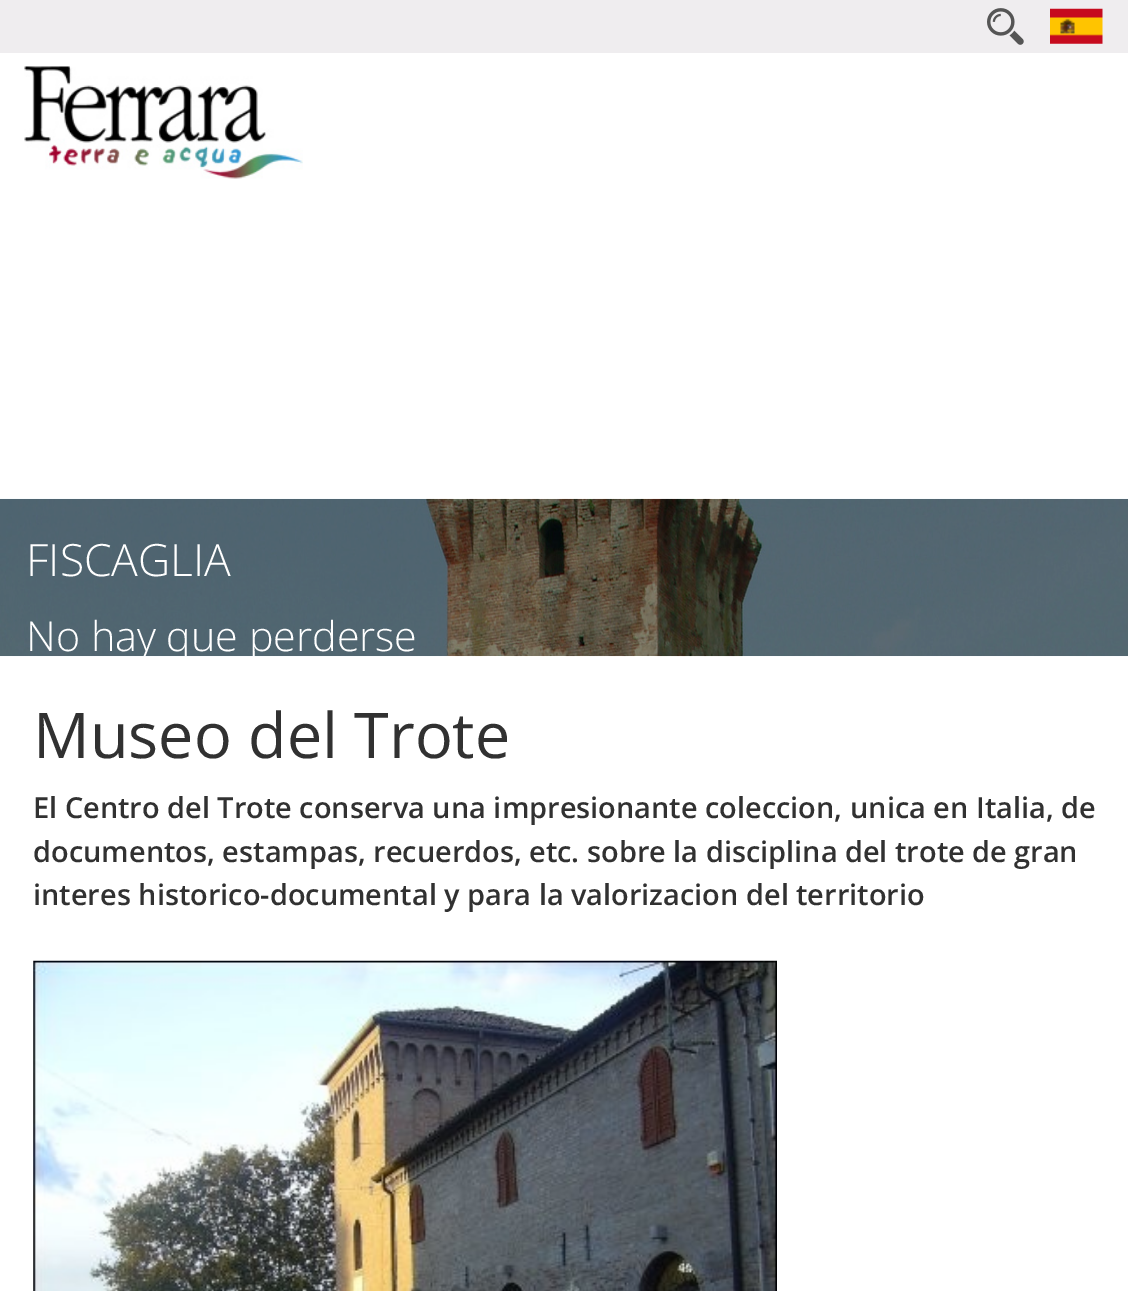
%!PS-Adobe-3.0
%%BoundingBox: 0 0 1128 1291
%%LanguageLevel: 3
%%Pages: 1
%%EndComments
%%BeginProlog
/setink { 3 { 255 div 3 1 roll } repeat setrgbcolor } def
/usefont { [ exch dup neg 0 0 3 -1 roll 0 0 ] selectfont } def
/drawtext { setink usefont moveto show } def
/fillbox { setink rectfill } def
/drawimage { 5 dict begin { /h /w /y /x /name } { exch def } forall
  gsave x y translate w h scale
  w h 8 [w 0 0 h 0 0] name (r) file false 3 colorimage grestore end } def
%%EndProlog
%%BeginSetup
<< /PageSize [1128 1291] >> setpagedevice
%%EndSetup
%%Page: 1 1
0 1291 translate 1 -1 scale
4 setmiterlimit
0 0 1128 1291 255 255 255 fillbox
0 0 1128 53 239 237 239 fillbox
(assets/img1.rgb) 1050 8 53 36 drawimage
(assets/img2.rgb) 987 8 37 37 drawimage
(assets/img3.rgb) 24 66 279 113 drawimage
(assets/img4.rgb) 0 498 1128 159 drawimage
(FISCAGLIA) 26 576 /OpenSans-Light 44.5 255 255 255 drawtext
gsave
0 499 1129 157 rectclip
(No hay que perderse) 26 651 /OpenSans-Light 41.25 255 255 255 drawtext
grestore
(Museo del Trote) 33 758 /OpenSans-Regular 63 49 49 49 drawtext
(El Centro del Trote conserva una impresionante coleccion, unica en Italia, de) 33 818 /OpenSans-SemiBold 28.9 49 49 49 drawtext
(documentos, estampas, recuerdos, etc. sobre la disciplina del trote de gran) 33 862 /OpenSans-SemiBold 28.9 49 49 49 drawtext
(interes historico-documental y para la valorizacion del territorio) 33 905 /OpenSans-SemiBold 28.9 49 49 49 drawtext
(assets/img5.rgb) 33 960 744 331 drawimage
showpage
%%EOF
